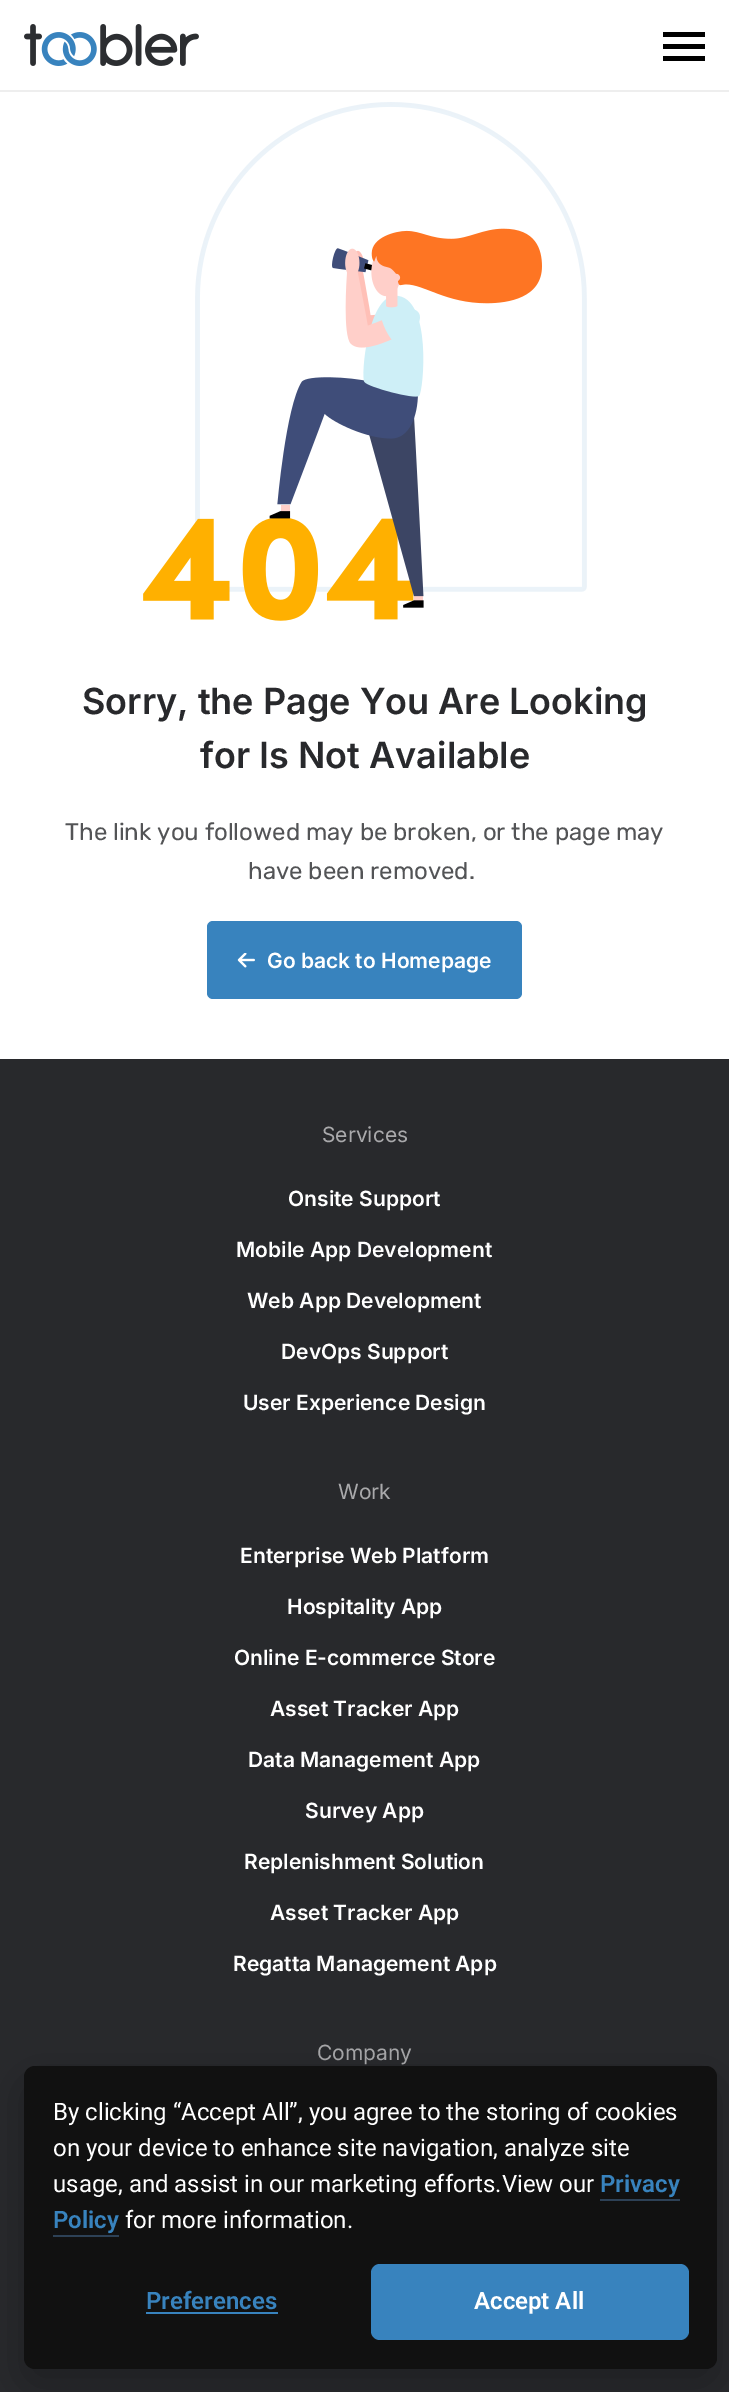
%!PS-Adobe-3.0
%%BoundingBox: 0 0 729 2392
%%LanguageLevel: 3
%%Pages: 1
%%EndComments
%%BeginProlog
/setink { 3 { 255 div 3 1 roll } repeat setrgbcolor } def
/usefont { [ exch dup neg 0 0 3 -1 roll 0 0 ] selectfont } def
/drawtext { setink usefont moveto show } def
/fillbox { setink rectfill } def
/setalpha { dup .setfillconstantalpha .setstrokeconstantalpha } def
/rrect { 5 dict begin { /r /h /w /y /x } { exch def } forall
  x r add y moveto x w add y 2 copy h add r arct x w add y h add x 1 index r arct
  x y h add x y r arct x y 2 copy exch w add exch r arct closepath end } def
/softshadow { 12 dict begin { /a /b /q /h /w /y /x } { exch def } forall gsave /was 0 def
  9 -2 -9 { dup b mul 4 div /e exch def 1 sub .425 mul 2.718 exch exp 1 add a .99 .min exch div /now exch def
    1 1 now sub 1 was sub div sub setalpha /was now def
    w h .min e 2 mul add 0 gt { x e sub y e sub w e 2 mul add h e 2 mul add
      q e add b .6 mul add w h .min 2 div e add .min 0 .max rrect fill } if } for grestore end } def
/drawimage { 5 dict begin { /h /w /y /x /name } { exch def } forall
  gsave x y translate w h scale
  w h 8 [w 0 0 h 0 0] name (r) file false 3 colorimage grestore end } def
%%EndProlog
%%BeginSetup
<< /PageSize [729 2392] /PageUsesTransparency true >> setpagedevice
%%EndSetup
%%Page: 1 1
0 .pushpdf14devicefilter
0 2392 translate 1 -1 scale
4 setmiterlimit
0 0 729 2392 255 255 255 fillbox
0 90 729 2 238 238 238 fillbox
(assets/img1.rgb) 24 24 175 42 drawimage
663 44 42 5 0 0 0 fillbox
663 32 42 5 0 0 0 fillbox
663 56 42 5 0 0 0 fillbox
(assets/img2.rgb) 143 102 444 519 drawimage
(Sorry, the Page You Are Looking) 82 714 /Inter-SemiBold 36 40 41 44 drawtext
(for Is Not Available) 200 768 /Inter-SemiBold 36 40 41 44 drawtext
(The link you followed may be broken, or the page may) 65 840 /Rubik-Regular 24 83 84 86 drawtext
(have been removed.) 248 879 /Rubik-Regular 24 83 84 86 drawtext
56 131 190 setink
207 921 315 78 6 rrect fill
(assets/img3.rgb) 237 953 18 15 drawimage
(Go back to Homepage) 267 968 /Inter-SemiBold 21 255 255 255 drawtext
0 1059 729 1333 40 41 44 fillbox
(Services) 322 1142 /Inter-Regular 21 169 169 171 drawtext
(Onsite Support) 288 1206 /Inter-SemiBold 21 255 255 255 drawtext
(Mobile App Development) 236 1257 /Inter-SemiBold 21 255 255 255 drawtext
(Web App Development) 247 1308 /Inter-SemiBold 21 255 255 255 drawtext
(DevOps Support) 281 1359 /Inter-SemiBold 21 255 255 255 drawtext
(User Experience Design) 243 1410 /Inter-SemiBold 21 255 255 255 drawtext
(Work) 338 1499 /Inter-Regular 21 169 169 171 drawtext
(Enterprise Web Platform) 240 1563 /Inter-SemiBold 21 255 255 255 drawtext
(Hospitality App) 287 1614 /Inter-SemiBold 21 255 255 255 drawtext
(Online E-commerce Store) 234 1665 /Inter-SemiBold 21 255 255 255 drawtext
(Asset Tracker App) 270 1716 /Inter-SemiBold 21 255 255 255 drawtext
(Data Management App) 248 1767 /Inter-SemiBold 21 255 255 255 drawtext
(Survey App) 305 1818 /Inter-SemiBold 21 255 255 255 drawtext
(Replenishment Solution) 244 1869 /Inter-SemiBold 21 255 255 255 drawtext
(Asset Tracker App) 270 1920 /Inter-SemiBold 21 255 255 255 drawtext
(Regatta Management App) 233 1971 /Inter-SemiBold 21 255 255 255 drawtext
(Company) 317 2060 /Inter-Regular 21 169 169 171 drawtext
2 2 3 setink
24 2081 693 303 11 22.5 0.28 softshadow
17 17 17 setink
24 2066 693 303 11 rrect fill
(By clicking “Accept All”, you agree to the storing of cookies) 53 2120 /Roboto-Regular 24 255 255 255 drawtext
(on your device to enhance site navigation, analyze site) 53 2156 /Roboto-Regular 24 255 255 255 drawtext
(usage, and assist in our marketing efforts.View our) 53 2192 /Roboto-Regular 24 255 255 255 drawtext
(Privacy) 600 2192 /Roboto-SemiBold 24 56 131 190 drawtext
600 2199 80 2 45 65 86 fillbox
(Policy) 53 2228 /Roboto-SemiBold 24 56 131 190 drawtext
53 2235 66 2 45 65 86 fillbox
(for more information.) 125 2228 /Roboto-Regular 24 255 255 255 drawtext
(Preferences) 146 2309 /Roboto-SemiBold 24 56 131 190 drawtext
146 2312 132 2 56 131 190 fillbox
371 2264 318 76 9 rrect fill
(Accept All) 474 2309 /Roboto-SemiBold 24 255 255 255 drawtext
.poppdf14devicefilter showpage
%%EOF
